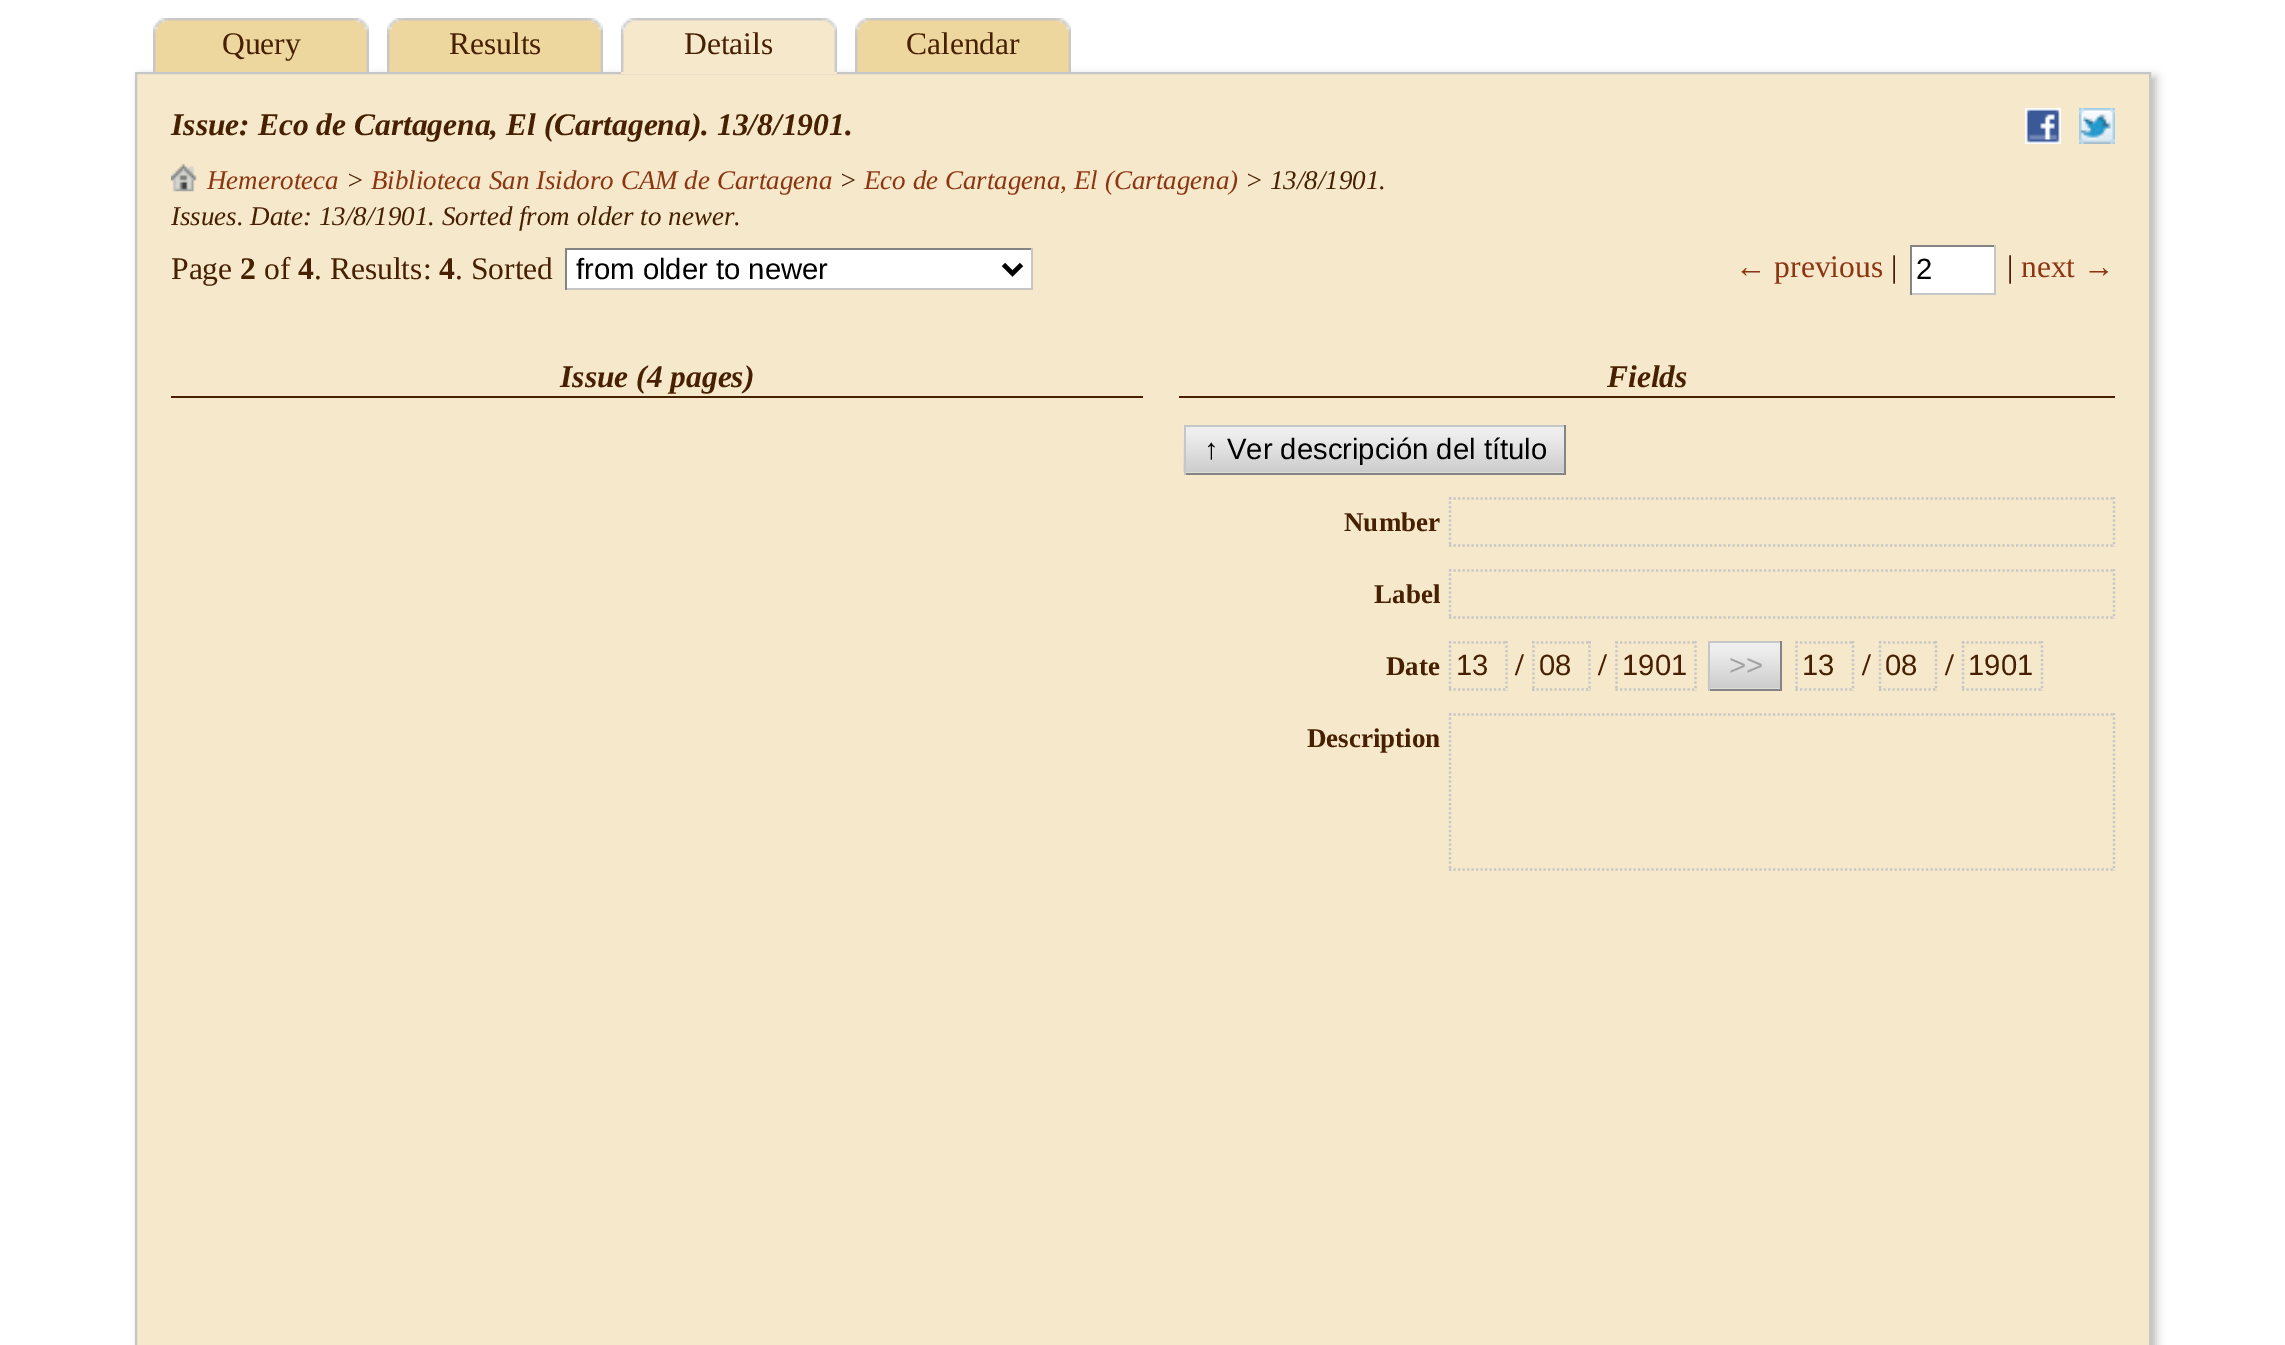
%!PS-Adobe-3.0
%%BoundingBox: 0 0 2285 1345
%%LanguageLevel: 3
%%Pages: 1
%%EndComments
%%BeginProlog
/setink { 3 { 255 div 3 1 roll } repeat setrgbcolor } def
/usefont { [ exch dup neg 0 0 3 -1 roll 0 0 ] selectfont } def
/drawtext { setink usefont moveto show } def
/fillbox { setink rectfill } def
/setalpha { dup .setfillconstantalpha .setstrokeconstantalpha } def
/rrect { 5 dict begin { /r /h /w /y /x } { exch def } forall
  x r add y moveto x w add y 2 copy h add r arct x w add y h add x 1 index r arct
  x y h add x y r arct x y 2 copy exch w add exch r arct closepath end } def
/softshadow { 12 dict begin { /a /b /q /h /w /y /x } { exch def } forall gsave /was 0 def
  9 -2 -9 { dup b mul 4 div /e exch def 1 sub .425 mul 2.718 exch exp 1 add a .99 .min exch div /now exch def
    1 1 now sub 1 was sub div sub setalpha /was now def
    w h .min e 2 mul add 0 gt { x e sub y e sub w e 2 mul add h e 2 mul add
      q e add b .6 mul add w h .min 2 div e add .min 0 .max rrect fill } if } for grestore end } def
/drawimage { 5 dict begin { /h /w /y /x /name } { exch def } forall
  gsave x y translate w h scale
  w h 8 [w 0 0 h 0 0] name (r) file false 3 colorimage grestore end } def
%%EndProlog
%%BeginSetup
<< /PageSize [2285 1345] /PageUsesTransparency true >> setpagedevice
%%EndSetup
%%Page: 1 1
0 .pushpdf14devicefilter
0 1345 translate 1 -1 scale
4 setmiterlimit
0 0 2285 1345 255 255 255 fillbox
187 187 187 setink
140 77 2016 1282 0 4.5 1 softshadow
154 19 214 53 238 214 159 fillbox
(assets/img1.rgb) 153 18 216 54 drawimage
(Query) 222 54 /LiberationSerif-Regular 31.5 70 32 0 drawtext
388 19 214 53 238 214 159 fillbox
(assets/img2.rgb) 387 18 216 54 drawimage
(Results) 449 54 /LiberationSerif-Regular 31.5 70 32 0 drawtext
246 232 203 setink
136 73 moveto 2150 73 lineto 2150 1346 lineto 136 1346 lineto closepath gsave fill grestore
198 198 198 setink
2 setlinewidth
stroke
621 19 216 55 246 232 203 fillbox
(assets/img3.rgb) 621 18 216 54 drawimage
(Details) 684 54 /LiberationSerif-Regular 31.5 70 32 0 drawtext
856 19 214 53 238 214 159 fillbox
(assets/img4.rgb) 855 18 216 54 drawimage
(Calendar) 906 54 /LiberationSerif-Regular 31.5 70 32 0 drawtext
(Issue: Eco de Cartagena, El \(Cartagena\). 13/8/1901.) 171 135 /LiberationSerif-BoldItalic 31.5 70 32 0 drawtext
(assets/img5.rgb) 2025 108 36 36 drawimage
(assets/img6.rgb) 2079 108 36 36 drawimage
(assets/img7.rgb) 171 164 26 28 drawimage
(Hemeroteca) 207 189 /LiberationSerif-Italic 27 139 54 17 drawtext
(>) 346 189 /LiberationSerif-Italic 27 70 32 0 drawtext
(Biblioteca San Isidoro CAM de Cartagena) 371 189 /LiberationSerif-Italic 27 139 54 17 drawtext
(>) 839 189 /LiberationSerif-Italic 27 70 32 0 drawtext
(Eco de Cartagena, El \(Cartagena\)) 864 189 /LiberationSerif-Italic 27 139 54 17 drawtext
(> 13/8/1901.) 1245 189 /LiberationSerif-Italic 27 70 32 0 drawtext
(Issues. Date: 13/8/1901. Sorted from older to newer.) 171 225 /LiberationSerif-Italic 27 70 32 0 drawtext
(Page) 171 279 /LiberationSerif-Regular 31.5 70 32 0 drawtext
(2) 240 279 /LiberationSerif-Bold 31.5 70 32 0 drawtext
(of) 264 279 /LiberationSerif-Regular 31.5 70 32 0 drawtext
(4) 298 279 /LiberationSerif-Bold 31.5 70 32 0 drawtext
(. Results:) 314 279 /LiberationSerif-Regular 31.5 70 32 0 drawtext
(4) 439 279 /LiberationSerif-Bold 31.5 70 32 0 drawtext
(. Sorted) 455 279 /LiberationSerif-Regular 31.5 70 32 0 drawtext
567 250 464 38 255 255 255 fillbox
565 248 468 2 132 132 132 fillbox
1031 248 2 42 198 198 198 fillbox
565 288 468 2 198 198 198 fillbox
565 248 2 42 132 132 132 fillbox
0 0 0 setink
4.5 setlinewidth
1003.5 264.5 moveto 1012.5 273.5 lineto 1021.5 264.5 lineto stroke
(from older to newer) 576 279 /LiberationSans-Regular 29.25 0 0 0 drawtext
(← previous) 1735 277 /LiberationSerif-Regular 31.5 139 54 17 drawtext
(|) 1891 277 /LiberationSerif-Regular 31.5 70 32 0 drawtext
1912 247 82 46 255 255 255 fillbox
1910 245 86 2 132 132 132 fillbox
1994 245 2 50 198 198 198 fillbox
1910 293 86 2 198 198 198 fillbox
1910 245 2 50 132 132 132 fillbox
(2) 1916 279 /LiberationSans-Regular 29.25 0 0 0 drawtext
(|) 2007 277 /LiberationSerif-Regular 31.5 70 32 0 drawtext
(next →) 2021 277 /LiberationSerif-Regular 31.5 139 54 17 drawtext
171 396 972 2 70 32 0 fillbox
(Issue \(4 pages\)) 560 387 /LiberationSerif-BoldItalic 31.5 70 32 0 drawtext
1179 396 936 2 70 32 0 fillbox
(Fields) 1607 387 /LiberationSerif-BoldItalic 31.5 70 32 0 drawtext
1186 472 378 1 238 238 238 fillbox
(assets/img8.rgb) 1183 425 381 48 drawimage
1184 425 382 2 198 198 198 fillbox
1564 425 2 50 132 132 132 fillbox
1184 473 382 2 132 132 132 fillbox
1184 425 2 50 198 198 198 fillbox
(↑ Ver descripción del título) 1204 459 /LiberationSans-Regular 29.25 0 0 0 drawtext
(Number) 1344 531 /LiberationSerif-Bold 27 70 32 0 drawtext
198 198 198 setink
2.2 setlinewidth
[2.25 2.25] 0 setdash
1449 498.5 moveto 2115 498.5 lineto stroke
2114 497 moveto 2114 547 lineto stroke
1449 545.5 moveto 2115 545.5 lineto stroke
1450 497 moveto 1450 547 lineto stroke
(Label) 1374 603 /LiberationSerif-Bold 27 70 32 0 drawtext
198 198 198 setink
1449 570.5 moveto 2115 570.5 lineto stroke
2114 569 moveto 2114 619 lineto stroke
1449 617.5 moveto 2115 617.5 lineto stroke
1450 569 moveto 1450 619 lineto stroke
(Date) 1386 675 /LiberationSerif-Bold 27 70 32 0 drawtext
198 198 198 setink
1449 642.5 moveto 1507.5 642.5 lineto 1506.5 641 moveto 1506.5 691 lineto 1449 689.5 moveto 1507.5 689.5 lineto 1450 641 moveto 1450 691 lineto stroke
(13) 1456 675 /LiberationSans-Regular 29.25 70 32 0 drawtext
(/) 1515 675 /LiberationSerif-Bold 31.5 70 32 0 drawtext
198 198 198 setink
1532 642.5 moveto 1591 642.5 lineto 1589.5 641 moveto 1589.5 691 lineto 1532 689.5 moveto 1591 689.5 lineto 1533.5 641 moveto 1533.5 691 lineto stroke
(08) 1539 675 /LiberationSans-Regular 29.25 70 32 0 drawtext
(/) 1598 675 /LiberationSerif-Bold 31.5 70 32 0 drawtext
198 198 198 setink
1615.5 642.5 moveto 1696.5 642.5 lineto stroke
1695.5 641 moveto 1695.5 691 lineto stroke
1615.5 689.5 moveto 1696.5 689.5 lineto stroke
1616.5 641 moveto 1616.5 691 lineto stroke
(1901) 1622 675 /LiberationSans-Regular 29.25 70 32 0 drawtext
1710 688 70 1 238 238 238 fillbox
(assets/img9.rgb) 1707 641 73 48 drawimage
1708 641 74 2 198 198 198 fillbox
1780 641 2 50 132 132 132 fillbox
1708 689 74 2 132 132 132 fillbox
1708 641 2 50 198 198 198 fillbox
(>>) 1729 675 /LiberationSans-Regular 29.25 162 162 162 drawtext
198 198 198 setink
1795.5 642.5 moveto 1854 642.5 lineto 1853 641 moveto 1853 691 lineto 1795.5 689.5 moveto 1854 689.5 lineto 1796.5 641 moveto 1796.5 691 lineto stroke
(13) 1802 675 /LiberationSans-Regular 29.25 70 32 0 drawtext
(/) 1862 675 /LiberationSerif-Bold 31.5 70 32 0 drawtext
198 198 198 setink
1879 642.5 moveto 1937 642.5 lineto 1936 641 moveto 1936 691 lineto 1879 689.5 moveto 1937 689.5 lineto 1880 641 moveto 1880 691 lineto stroke
(08) 1885 675 /LiberationSans-Regular 29.25 70 32 0 drawtext
(/) 1945 675 /LiberationSerif-Bold 31.5 70 32 0 drawtext
198 198 198 setink
1962 642.5 moveto 2043 642.5 lineto stroke
2042 641 moveto 2042 691 lineto stroke
1962 689.5 moveto 2043 689.5 lineto stroke
1963 641 moveto 1963 691 lineto stroke
(1901) 1968 675 /LiberationSans-Regular 29.25 70 32 0 drawtext
(Description) 1307 747 /LiberationSerif-Bold 27 70 32 0 drawtext
198 198 198 setink
1449 714.5 moveto 2115 714.5 lineto stroke
2114 713 moveto 2114 871 lineto stroke
1449 869.5 moveto 2115 869.5 lineto stroke
1450 713 moveto 1450 871 lineto stroke
.poppdf14devicefilter showpage
%%EOF
